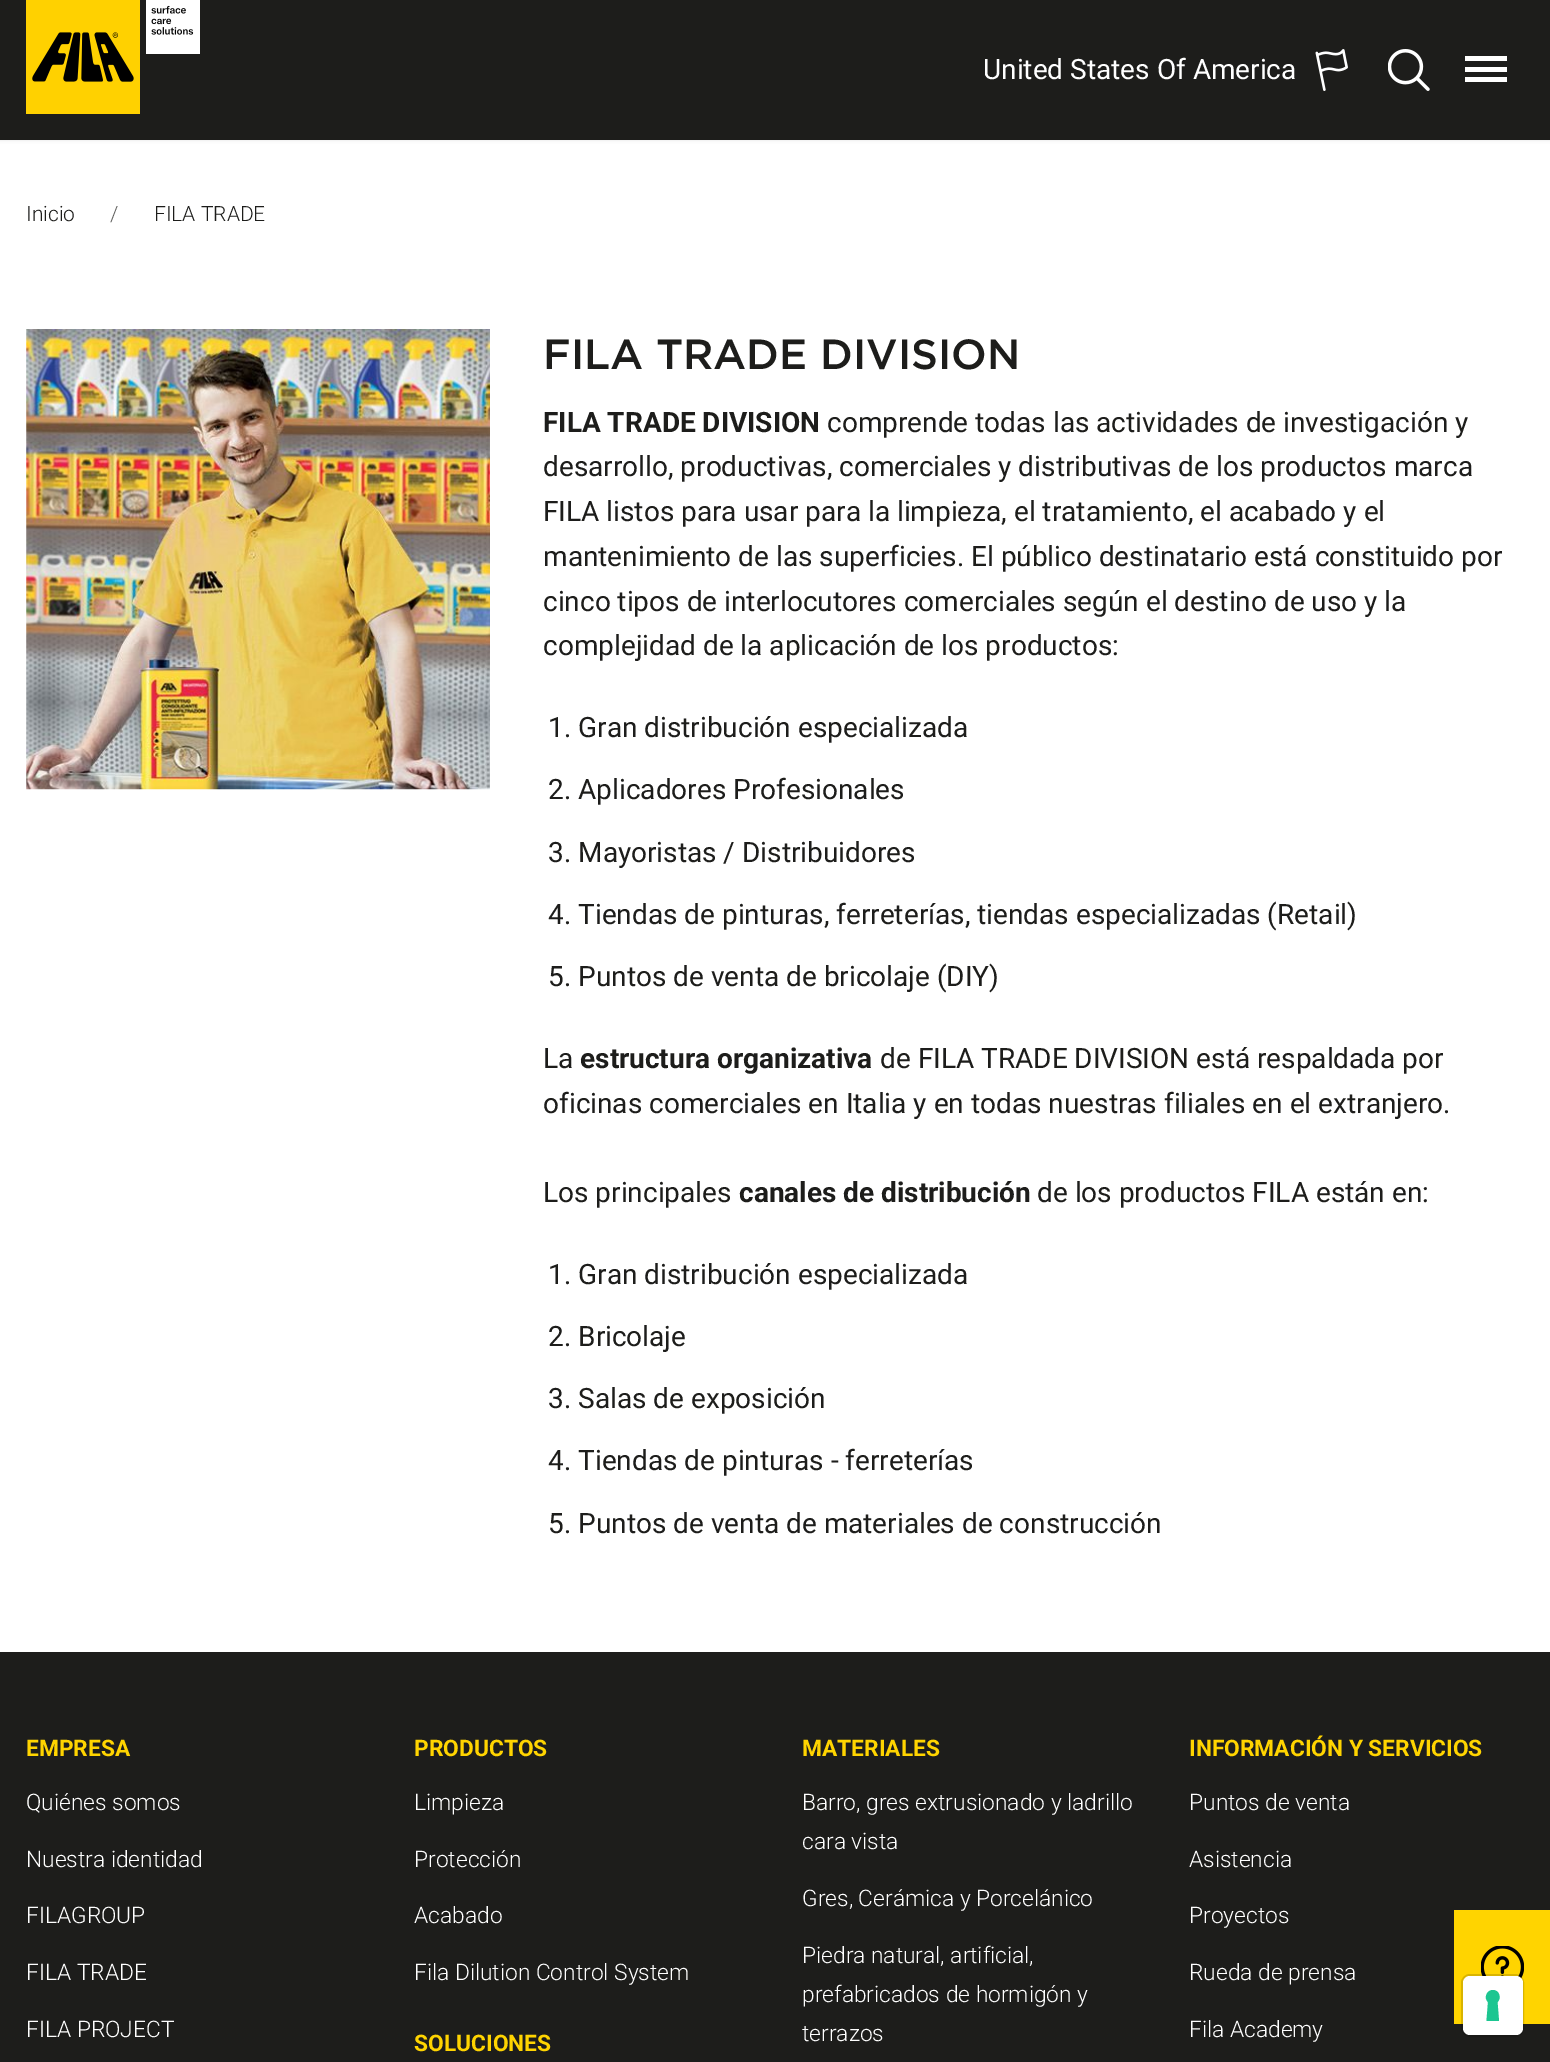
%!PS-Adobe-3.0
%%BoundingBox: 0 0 1550 2062
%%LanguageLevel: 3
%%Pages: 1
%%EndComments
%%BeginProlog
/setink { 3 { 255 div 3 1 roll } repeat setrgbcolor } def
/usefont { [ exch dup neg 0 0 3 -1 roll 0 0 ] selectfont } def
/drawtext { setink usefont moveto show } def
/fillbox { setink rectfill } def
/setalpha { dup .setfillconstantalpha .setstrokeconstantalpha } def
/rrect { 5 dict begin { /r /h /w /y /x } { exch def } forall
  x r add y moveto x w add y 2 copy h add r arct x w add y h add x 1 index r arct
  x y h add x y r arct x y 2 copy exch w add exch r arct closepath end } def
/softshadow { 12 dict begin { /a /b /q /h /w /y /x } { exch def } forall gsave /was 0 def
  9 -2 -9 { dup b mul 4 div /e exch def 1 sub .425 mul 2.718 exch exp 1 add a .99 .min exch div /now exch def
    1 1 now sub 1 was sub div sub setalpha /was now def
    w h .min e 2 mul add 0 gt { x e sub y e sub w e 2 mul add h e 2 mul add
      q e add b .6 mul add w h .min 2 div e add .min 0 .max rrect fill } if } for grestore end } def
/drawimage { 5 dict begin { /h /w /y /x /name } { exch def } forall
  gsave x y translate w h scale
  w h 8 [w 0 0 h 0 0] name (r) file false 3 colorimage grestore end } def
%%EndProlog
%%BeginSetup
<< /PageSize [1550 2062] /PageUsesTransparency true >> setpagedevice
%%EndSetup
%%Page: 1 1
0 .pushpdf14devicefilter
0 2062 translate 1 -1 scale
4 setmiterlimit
0 0 1550 2062 255 255 255 fillbox
153 153 153 setink
0 0 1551 140 0 2 0.3 softshadow
0 0 1550 140 29 29 27 fillbox
(assets/img1.rgb) 26 0 174 114 drawimage
(United States Of America) 983 79 /Roboto-Regular 28 255 255 255 drawtext
(assets/img2.rgb) 1315 49 33 42 drawimage
(assets/img3.rgb) 1388 49 42 42 drawimage
1465 67 42 5 255 255 255 fillbox
1465 56 42 5 255 255 255 fillbox
1465 77 42 5 255 255 255 fillbox
(Inicio) 26 221 /Roboto-Light 21 29 29 27 drawtext
(/) 110 221 /Roboto-Light 21 97 97 95 drawtext
(FILA TRADE) 154 221 /Roboto-Light 21 29 29 27 drawtext
(assets/img4.rgb) 26 329 464 461 drawimage
(FILA TRADE DIVISION) 543 369 /Gotham-Medium 42 29 29 27 drawtext
(FILA TRADE DIVISION) 543 432 /Roboto-Bold 28 29 29 27 drawtext
(comprende todas las actividades de investigación y) 827 432 /Roboto-Regular 28 29 29 27 drawtext
(desarrollo, productivas, comerciales y distributivas de los productos marca) 543 476 /Roboto-Regular 28 29 29 27 drawtext
(FILA listos para usar para la limpieza, el tratamiento, el acabado y el) 543 521 /Roboto-Regular 28 29 29 27 drawtext
(mantenimiento de las superficies. El público destinatario está constituido por) 543 566 /Roboto-Regular 28 29 29 27 drawtext
(cinco tipos de interlocutores comerciales según el destino de uso y la) 543 611 /Roboto-Regular 28 29 29 27 drawtext
(complejidad de la aplicación de los productos:) 543 655 /Roboto-Regular 28 29 29 27 drawtext
(1. Gran distribución especializada) 548 737 /Roboto-Regular 28 29 29 27 drawtext
(2. Aplicadores Profesionales) 548 799 /Roboto-Regular 28 29 29 27 drawtext
(3. Mayoristas / Distribuidores) 548 862 /Roboto-Regular 28 29 29 27 drawtext
(4. Tiendas de pinturas, ferreterías, tiendas especializadas \(Retail\)) 548 924 /Roboto-Regular 28 29 29 27 drawtext
(5. Puntos de venta de bricolaje \(DIY\)) 548 986 /Roboto-Regular 28 29 29 27 drawtext
(La) 543 1068 /Roboto-Regular 28 29 29 27 drawtext
(estructura organizativa) 580 1068 /Roboto-Bold 28 29 29 27 drawtext
(de FILA TRADE DIVISION está respaldada por) 880 1068 /Roboto-Regular 28 29 29 27 drawtext
(oficinas comerciales en Italia y en todas nuestras filiales en el extranjero.) 543 1113 /Roboto-Regular 28 29 29 27 drawtext
(Los principales) 543 1202 /Roboto-Regular 28 29 29 27 drawtext
(canales de distribución) 739 1202 /Roboto-Bold 28 29 29 27 drawtext
(de los productos FILA están en:) 1037 1202 /Roboto-Regular 28 29 29 27 drawtext
(1. Gran distribución especializada) 548 1284 /Roboto-Regular 28 29 29 27 drawtext
(2. Bricolaje) 548 1346 /Roboto-Regular 28 29 29 27 drawtext
(3. Salas de exposición) 548 1408 /Roboto-Regular 28 29 29 27 drawtext
(4. Tiendas de pinturas - ferreterías) 548 1470 /Roboto-Regular 28 29 29 27 drawtext
(5. Puntos de venta de materiales de construcción) 548 1533 /Roboto-Regular 28 29 29 27 drawtext
0 1652 1550 410 29 29 27 fillbox
(EMPRESA) 26 1756 /Roboto-Bold 22.75 255 212 0 drawtext
(Quiénes somos) 26 1810 /Roboto-Light 22.75 255 255 255 drawtext
(Nuestra identidad) 26 1867 /Roboto-Light 22.75 255 255 255 drawtext
(FILAGROUP) 26 1923 /Roboto-Light 22.75 255 255 255 drawtext
(FILA TRADE) 26 1980 /Roboto-Light 22.75 255 255 255 drawtext
(FILA PROJECT) 26 2037 /Roboto-Light 22.75 255 255 255 drawtext
(PRODUCTOS) 414 1756 /Roboto-Bold 22.75 255 212 0 drawtext
(Limpieza) 414 1810 /Roboto-Light 22.75 255 255 255 drawtext
(Protección) 414 1867 /Roboto-Light 22.75 255 255 255 drawtext
(Acabado) 414 1923 /Roboto-Light 22.75 255 255 255 drawtext
(Fila Dilution Control System) 414 1980 /Roboto-Light 22.75 255 255 255 drawtext
(SOLUCIONES) 414 2051 /Roboto-Bold 22.75 255 212 0 drawtext
(MATERIALES) 802 1756 /Roboto-Bold 22.75 255 212 0 drawtext
(Barro, gres extrusionado y ladrillo) 802 1810 /Roboto-Light 22.75 255 255 255 drawtext
(cara vista) 802 1849 /Roboto-Light 22.75 255 255 255 drawtext
(Gres, Cerámica y Porcelánico) 802 1906 /Roboto-Light 22.75 255 255 255 drawtext
(Piedra natural, artificial,) 802 1963 /Roboto-Light 22.75 255 255 255 drawtext
(prefabricados de hormigón y) 802 2002 /Roboto-Light 22.75 255 255 255 drawtext
(terrazos) 802 2041 /Roboto-Light 22.75 255 255 255 drawtext
(INFORMACIÓN Y SERVICIOS) 1189 1756 /Roboto-Bold 22.75 255 212 0 drawtext
(Puntos de venta) 1189 1810 /Roboto-Light 22.75 255 255 255 drawtext
(Asistencia) 1189 1867 /Roboto-Light 22.75 255 255 255 drawtext
(Proyectos) 1189 1923 /Roboto-Light 22.75 255 255 255 drawtext
(Rueda de prensa) 1189 1980 /Roboto-Light 22.75 255 255 255 drawtext
(Fila Academy) 1189 2037 /Roboto-Light 22.75 255 255 255 drawtext
1454 1910 96 114 255 212 0 fillbox
(assets/img5.rgb) 1481 1946 43 33 drawimage
0.15 setalpha
0 0 0 setink
2 setlinewidth
1462 1975 61 61 8 rrect stroke
1 setalpha
255 255 255 setink
1463 1976 60 59 7 rrect fill
28 198 145 setink
1493 1990 moveto 1499 1990 1502 1998 1497.5 2002 curveto 1499 2021 lineto 1486.5 2021 lineto 1488 2002 lineto 1483.5 1998 1486.5 1990 1493 1990 curveto closepath eofill
.poppdf14devicefilter showpage
%%EOF
